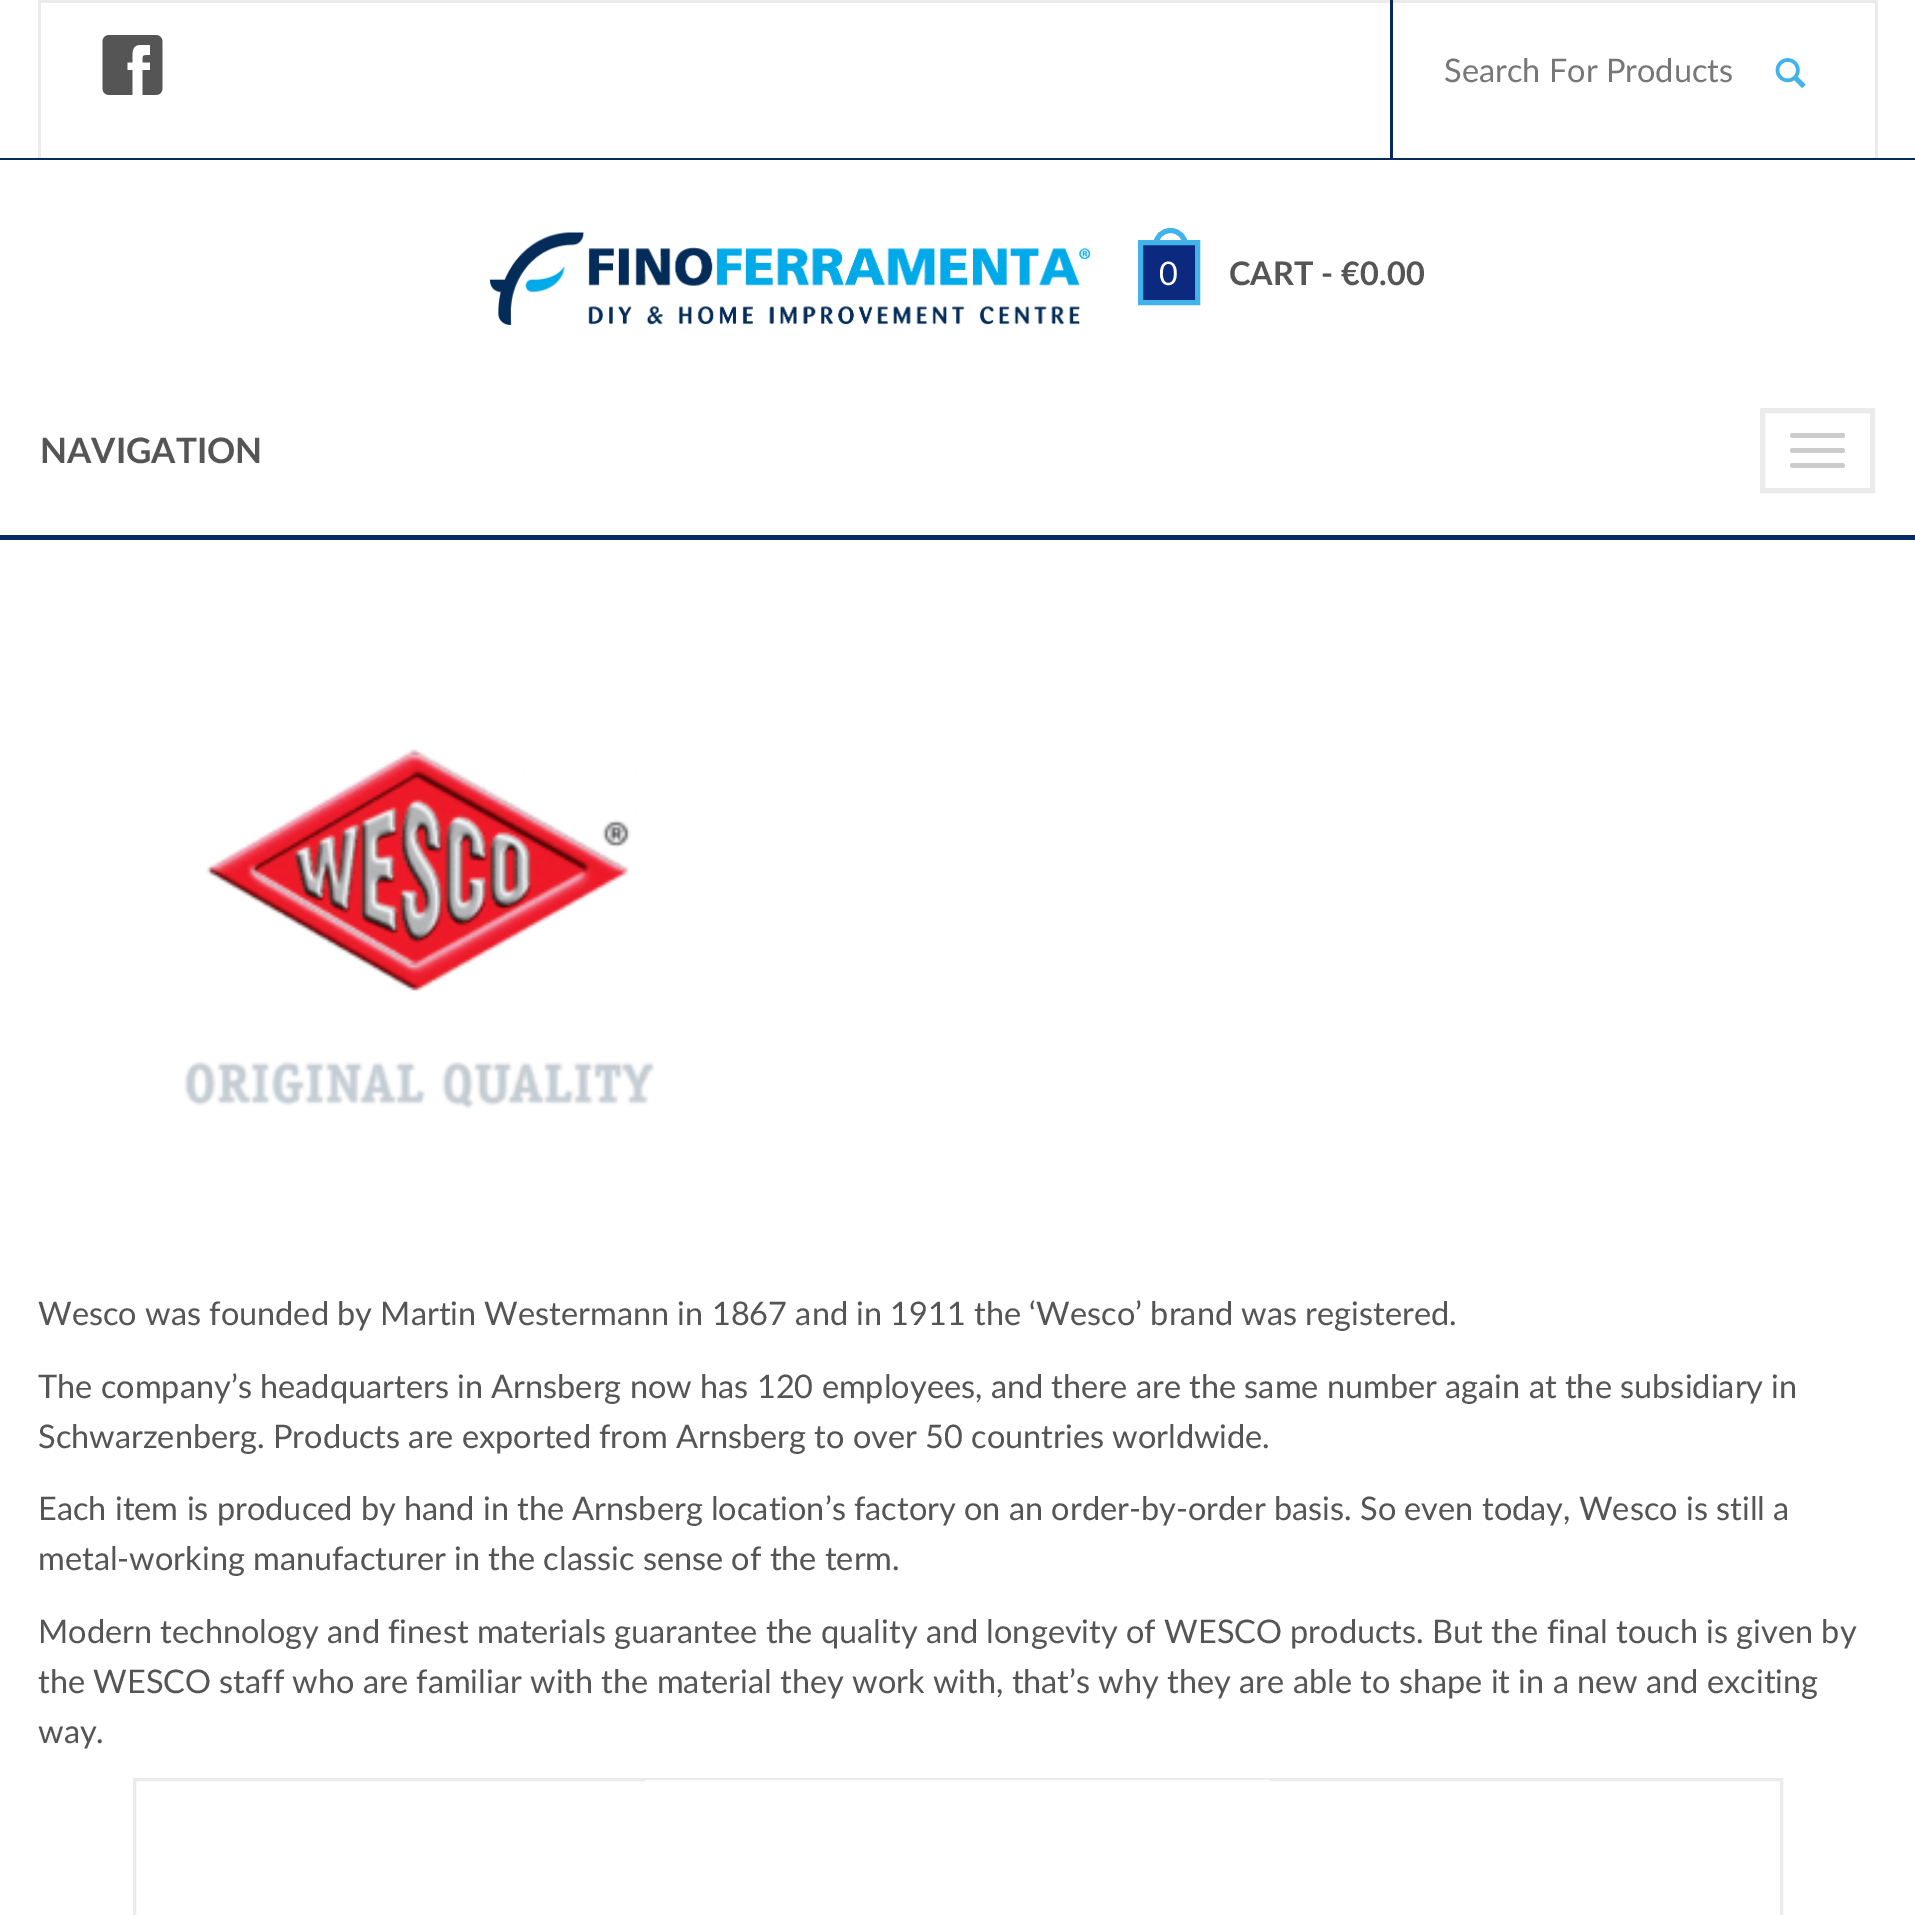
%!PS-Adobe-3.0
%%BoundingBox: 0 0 1915 1915
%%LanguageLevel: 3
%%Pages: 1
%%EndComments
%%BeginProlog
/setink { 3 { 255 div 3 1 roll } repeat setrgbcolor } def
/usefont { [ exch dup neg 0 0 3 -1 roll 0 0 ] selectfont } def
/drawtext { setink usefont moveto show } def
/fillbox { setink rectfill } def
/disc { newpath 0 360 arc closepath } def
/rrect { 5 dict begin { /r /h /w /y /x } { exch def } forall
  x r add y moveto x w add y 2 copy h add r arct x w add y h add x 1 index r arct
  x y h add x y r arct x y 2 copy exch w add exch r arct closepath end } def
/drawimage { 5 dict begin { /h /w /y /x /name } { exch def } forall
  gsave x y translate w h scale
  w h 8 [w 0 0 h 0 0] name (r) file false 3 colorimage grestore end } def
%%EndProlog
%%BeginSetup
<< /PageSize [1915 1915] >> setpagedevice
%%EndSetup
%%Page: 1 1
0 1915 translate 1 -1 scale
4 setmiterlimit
0 0 1915 1915 255 255 255 fillbox
0 158 1915 2 4 44 94 fillbox
38 0 1840 3 235 235 235 fillbox
1875 0 3 158 235 235 235 fillbox
38 0 3 158 235 235 235 fillbox
(assets/img1.rgb) 102 35 61 60 drawimage
1390 0 3 158 4 44 88 fillbox
(Search For Products) 1444 82 /Lato-Regular 32.5 119 119 119 drawtext
(assets/img2.rgb) 1775 58 31 30 drawimage
0 535 1915 5 4 44 94 fillbox
(assets/img3.rgb) 490 232 600 93 drawimage
65 178 234 setink
5 setlinewidth
1170.5 245.5 15 disc stroke
10 41 127 setink
1140.5 242.5 moveto 1197.5 242.5 lineto 1197.5 302.5 lineto 1140.5 302.5 lineto closepath gsave fill grestore
65 178 234 setink
stroke
(0) 1159 285 /Lato-Regular 32.5 255 255 255 drawtext
(CART - €0.00) 1229 285 /Lato-Bold 32.5 85 85 85 drawtext
(NAVIGATION) 40 463 /Lato-Bold 35 85 85 85 drawtext
235 235 235 setink
1762.5 410.5 110 80 rectstroke
204 204 204 setink
1790 433 55 5 2.5 rrect fill
1790 448 55 5 2.5 rrect fill
1790 463 55 5 2.5 rrect fill
(assets/img4.rgb) 184 749 471 360 drawimage
(Wesco was founded by Martin Westermann in 1867 and in 1911 the ‘Wesco’ brand was registered.) 38 1325 /Lato-Regular 32.5 85 85 85 drawtext
(The company’s headquarters in Arnsberg now has 120 employees, and there are the same number again at the subsidiary in) 38 1398 /Lato-Regular 32.5 85 85 85 drawtext
(Schwarzenberg. Products are exported from Arnsberg to over 50 countries worldwide.) 38 1448 /Lato-Regular 32.5 85 85 85 drawtext
(Each item is produced by hand in the Arnsberg location’s factory on an order-by-order basis. So even today, Wesco is still a) 38 1520 /Lato-Regular 32.5 85 85 85 drawtext
(metal-working manufacturer in the classic sense of the term.) 38 1570 /Lato-Regular 32.5 85 85 85 drawtext
(Modern technology and finest materials guarantee the quality and longevity of WESCO products. But the final touch is given by) 38 1643 /Lato-Regular 32.5 85 85 85 drawtext
(the WESCO staff who are familiar with the material they work with, that’s why they are able to shape it in a new and exciting) 38 1693 /Lato-Regular 32.5 85 85 85 drawtext
(way.) 38 1743 /Lato-Regular 32.5 85 85 85 drawtext
235 235 235 setink
3 setlinewidth
134.5 1779.5 1647 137 rectstroke
645 1780 625 1 254 254 254 fillbox
showpage
%%EOF
